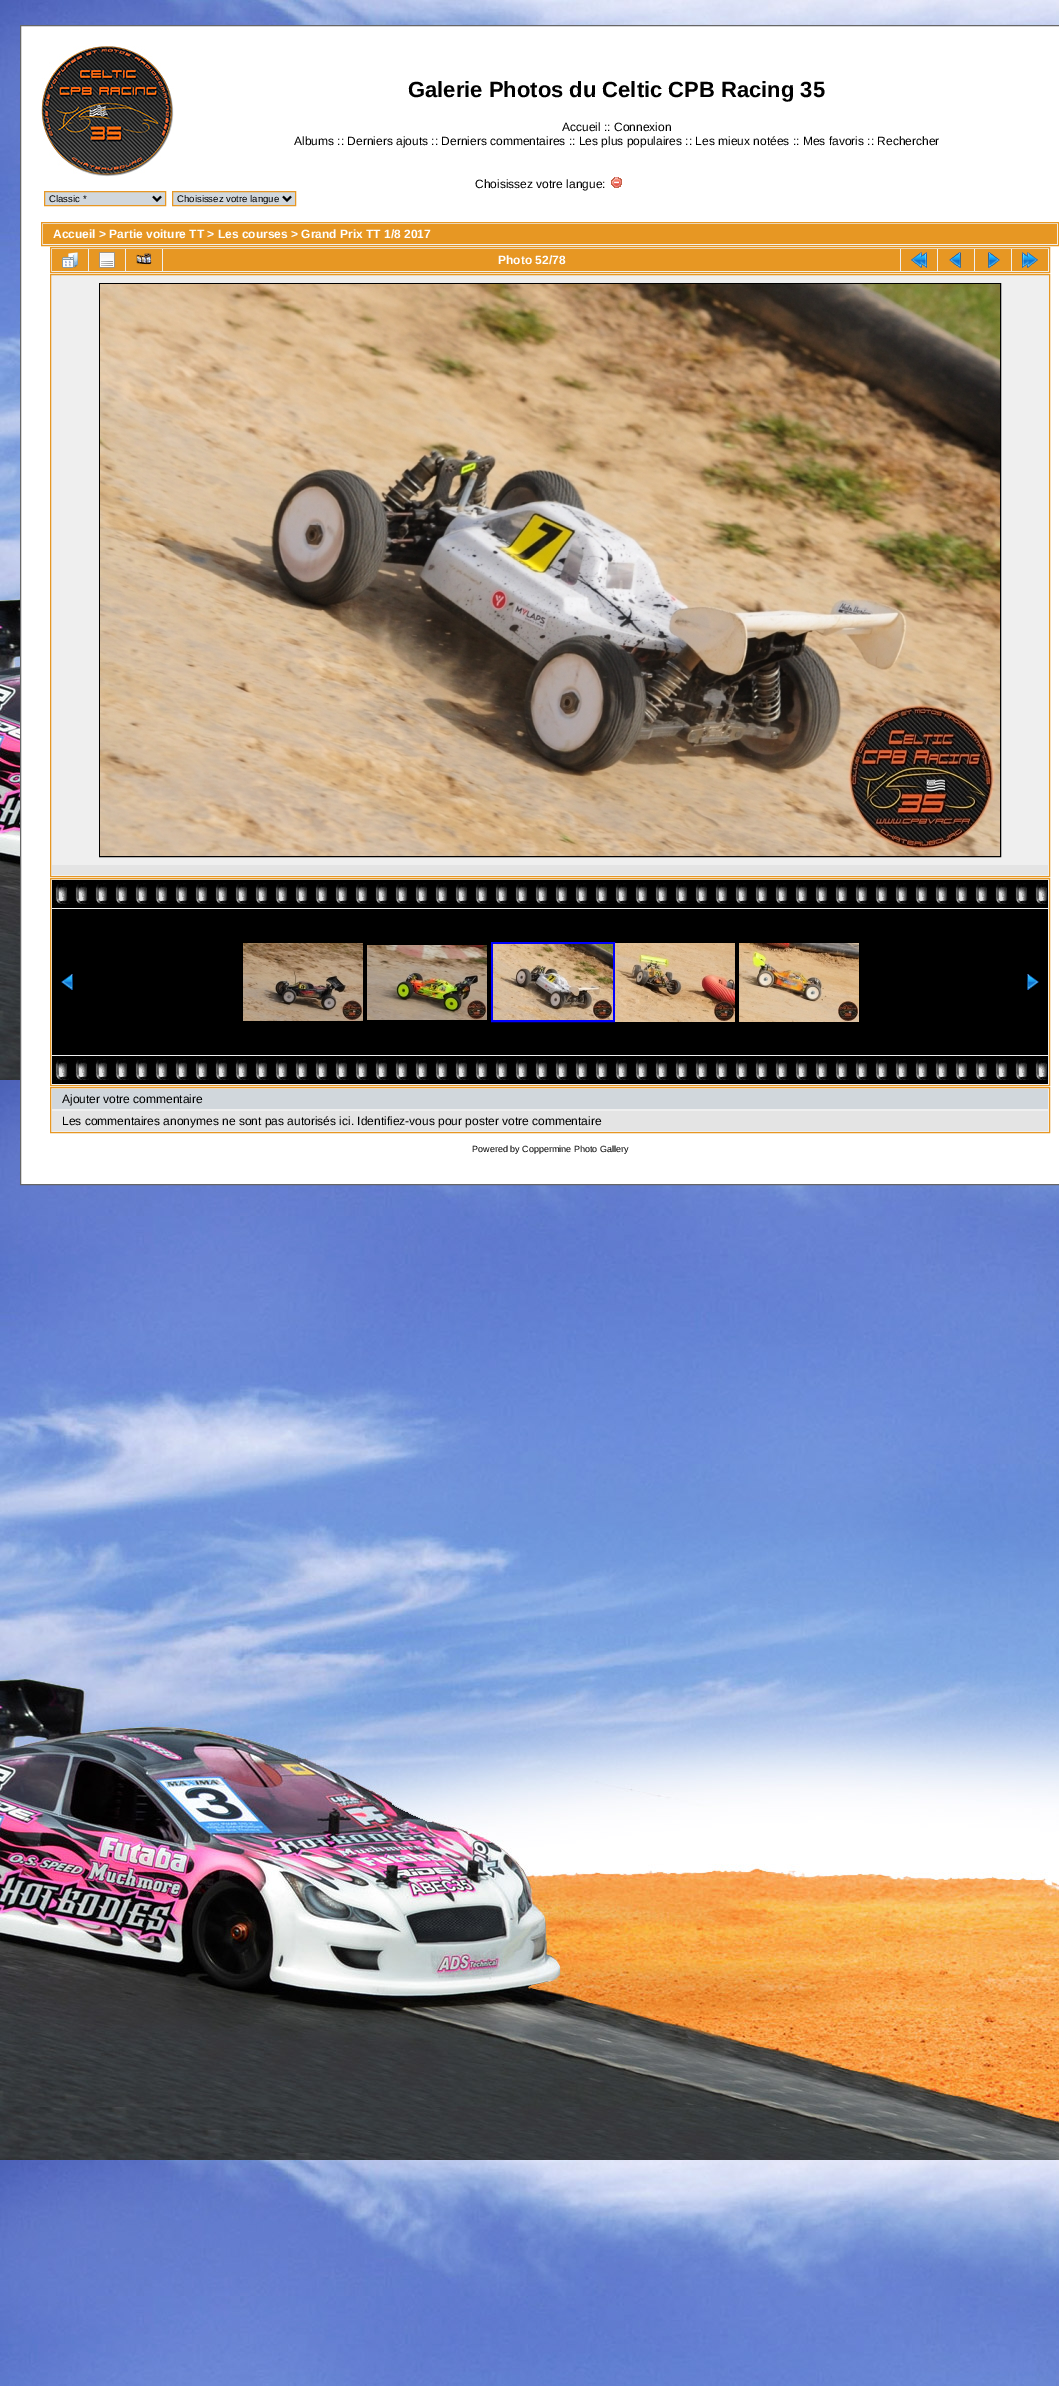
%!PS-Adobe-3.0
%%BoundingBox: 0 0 1059 2386
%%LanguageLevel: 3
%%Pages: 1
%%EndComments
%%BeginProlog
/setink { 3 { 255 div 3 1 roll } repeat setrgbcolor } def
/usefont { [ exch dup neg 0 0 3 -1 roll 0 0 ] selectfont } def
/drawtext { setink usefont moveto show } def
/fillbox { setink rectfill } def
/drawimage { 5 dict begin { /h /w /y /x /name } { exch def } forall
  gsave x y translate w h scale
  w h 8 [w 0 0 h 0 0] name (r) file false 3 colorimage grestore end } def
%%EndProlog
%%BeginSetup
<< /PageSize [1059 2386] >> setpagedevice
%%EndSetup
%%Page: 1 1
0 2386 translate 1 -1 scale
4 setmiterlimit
0 0 1059 2386 255 255 255 fillbox
(assets/img1.rgb) 0 0 1059 2386 drawimage
20.5 25.5 moveto 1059.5 25.5 lineto 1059.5 1184.5 lineto 20.5 1184.5 lineto closepath gsave fill grestore
102 102 102 setink
stroke
(assets/img2.rgb) 41 46 133 131 drawimage
(Galerie Photos du Celtic CPB Racing 35) 408 97 /LiberationSans-Bold 22 0 0 0 drawtext
(Accueil :: Connexion) 562 131 /LiberationSans-Regular 12 0 0 0 drawtext
(Albums :: Derniers ajouts :: Derniers commentaires :: Les plus populaires :: Les mieux notées :: Mes favoris :: Rechercher) 294 145 /LiberationSans-Regular 12 0 0 0 drawtext
(Choisissez votre langue:) 475 188 /LiberationSans-Regular 12 0 0 0 drawtext
(assets/img3.rgb) 611 177 11 11 drawimage
209 215 220 setink
44.5 191.5 moveto 165.5 191.5 lineto 165.5 205.5 lineto 44.5 205.5 lineto closepath gsave fill grestore
231 151 35 setink
stroke
0 0 0 setink
2 setlinewidth
153 196.5 moveto 157 200.5 lineto 161 196.5 lineto stroke
(Classic *) 49 202 /LiberationSans-Regular 9.6 0 0 0 drawtext
209 215 220 setink
172.5 191.5 moveto 295.5 191.5 lineto 295.5 205.5 lineto 172.5 205.5 lineto closepath gsave fill grestore
231 151 35 setink
1 setlinewidth
stroke
0 0 0 setink
2 setlinewidth
283 196.5 moveto 287 200.5 lineto 291 196.5 lineto stroke
(Choisissez votre langue) 177 202 /LiberationSans-Regular 9.6 0 0 0 drawtext
239 239 239 setink
41.5 222.5 moveto 1058.5 222.5 lineto 1058.5 245.5 lineto 41.5 245.5 lineto closepath gsave fill grestore
231 151 35 setink
1 setlinewidth
stroke
43 224 1014 20 231 151 35 fillbox
(Accueil > Partie voiture TT > Les courses > Grand Prix TT 1/8 2017) 53 238 /LiberationSans-Bold 12 255 255 255 drawtext
239 239 239 setink
50.5 247.5 moveto 1049.5 247.5 lineto 1049.5 272.5 lineto 50.5 272.5 lineto closepath gsave fill grestore
231 151 35 setink
stroke
52 249 36 22 231 151 35 fillbox
(assets/img4.rgb) 62 252 16 16 drawimage
89 249 36 22 231 151 35 fillbox
(assets/img5.rgb) 99 252 16 16 drawimage
126 249 36 22 231 151 35 fillbox
(assets/img6.rgb) 136 253 16 12 drawimage
163 249 737 22 231 151 35 fillbox
(Photo 52/78) 498 264 /LiberationSans-Bold 12 255 255 255 drawtext
901 249 36 22 231 151 35 fillbox
(assets/img7.rgb) 911 252 16 16 drawimage
938 249 36 22 231 151 35 fillbox
(assets/img8.rgb) 949 252 12 16 drawimage
975 249 36 22 231 151 35 fillbox
(assets/img9.rgb) 988 252 12 16 drawimage
1012 249 36 22 231 151 35 fillbox
(assets/img10.rgb) 1022 252 16 16 drawimage
239 239 239 setink
50.5 274.5 moveto 1049.5 274.5 lineto 1049.5 876.5 lineto 50.5 876.5 lineto closepath gsave fill grestore
231 151 35 setink
stroke
0 0 0 setink
99.5 283.5 901 573 rectstroke
(assets/img11.rgb) 100 284 900 572 drawimage
52 865 996 10 228 228 228 fillbox
239 239 239 setink
50.5 878.5 moveto 1049.5 878.5 lineto 1049.5 1085.5 lineto 50.5 1085.5 lineto closepath gsave fill grestore
231 151 35 setink
stroke
52 880 996 28 0 0 0 fillbox
(assets/img12.rgb) 55 880 993 24 drawimage
52 909 996 146 0 0 0 fillbox
(assets/img13.rgb) 61 974 12 16 drawimage
(assets/img14.rgb) 243 943 120 78 drawimage
(assets/img15.rgb) 367 945 120 75 drawimage
0 0 255 setink
2 setlinewidth
492 943 122 78 rectstroke
(assets/img16.rgb) 493 944 120 76 drawimage
(assets/img17.rgb) 615 943 120 79 drawimage
(assets/img18.rgb) 739 943 120 79 drawimage
(assets/img19.rgb) 1027 974 12 16 drawimage
52 1056 996 28 0 0 0 fillbox
(assets/img12.rgb) 55 1056 993 24 drawimage
239 239 239 setink
50.5 1087.5 moveto 1049.5 1087.5 lineto 1049.5 1132.5 lineto 50.5 1132.5 lineto closepath gsave fill grestore
231 151 35 setink
1 setlinewidth
stroke
52 1089 996 20 209 215 220 fillbox
(Ajouter votre commentaire) 62 1103 /LiberationSans-Regular 12 0 0 0 drawtext
52 1111 996 20 228 228 228 fillbox
(Les commentaires anonymes ne sont pas autorisés ici. Identifiez-vous pour poster votre commentaire) 62 1125 /LiberationSans-Regular 12 0 0 0 drawtext
(Powered by Coppermine Photo Gallery) 472 1152 /LiberationSans-Regular 9 0 0 0 drawtext
showpage
%%EOF
